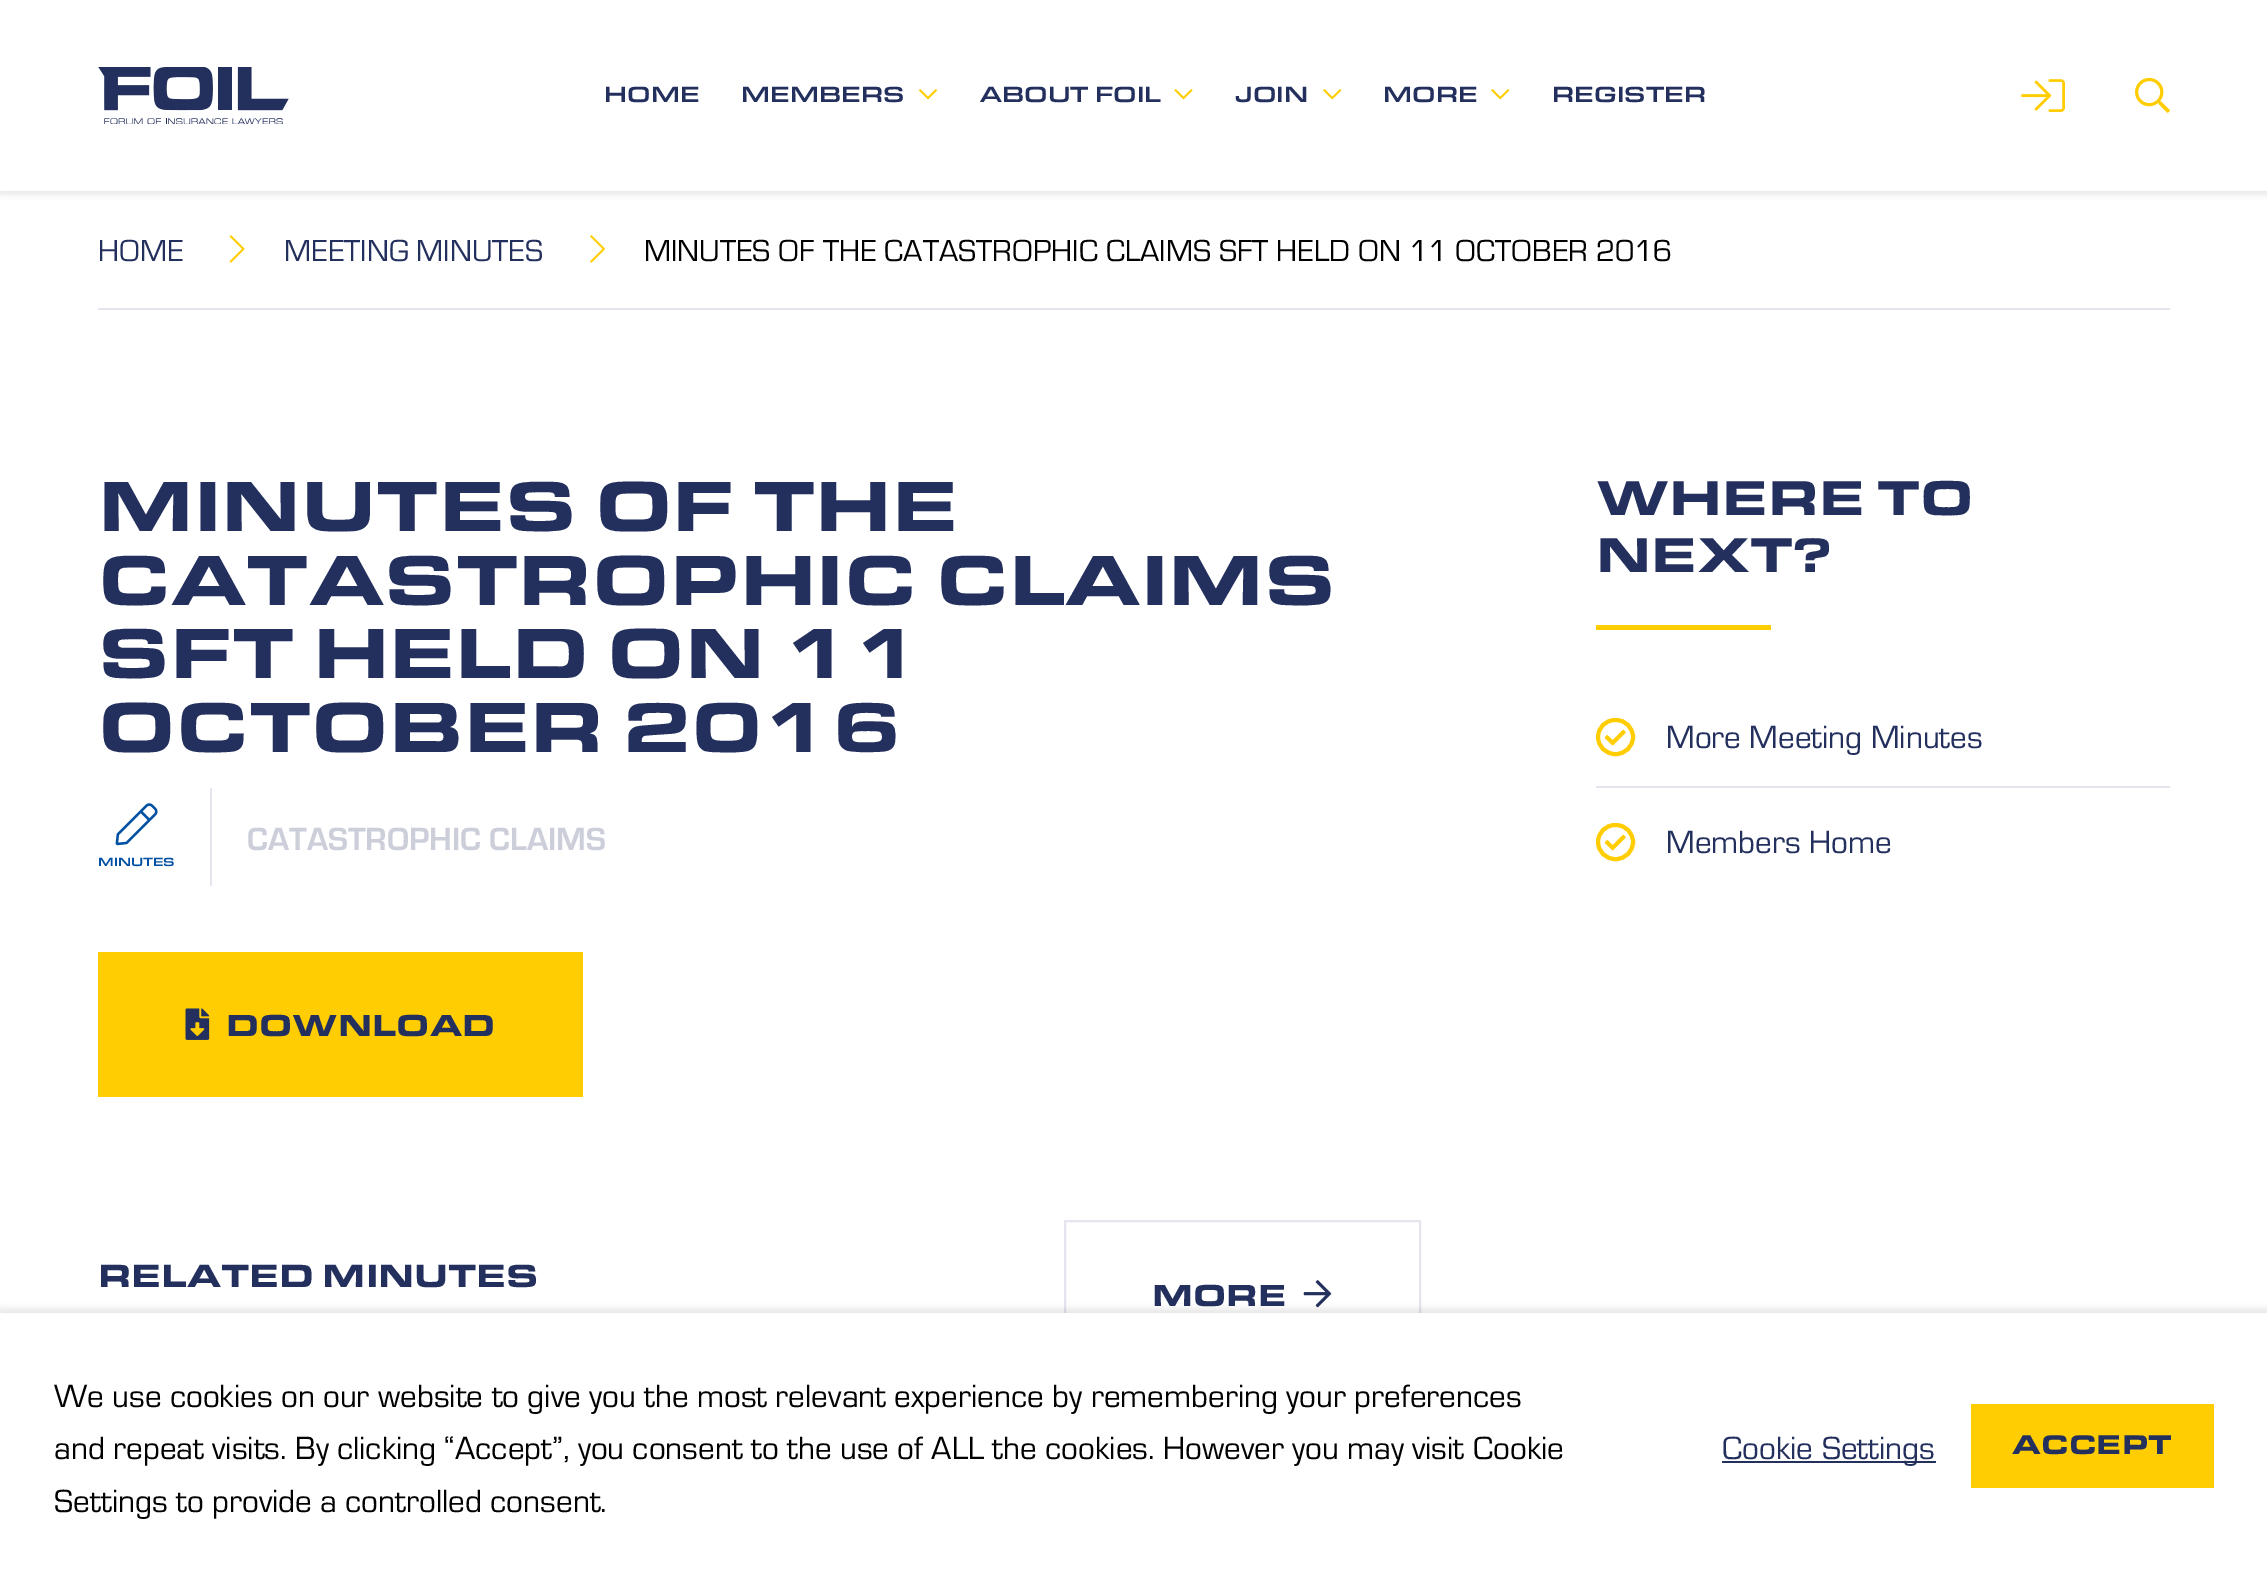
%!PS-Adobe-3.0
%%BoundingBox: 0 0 2267 1577
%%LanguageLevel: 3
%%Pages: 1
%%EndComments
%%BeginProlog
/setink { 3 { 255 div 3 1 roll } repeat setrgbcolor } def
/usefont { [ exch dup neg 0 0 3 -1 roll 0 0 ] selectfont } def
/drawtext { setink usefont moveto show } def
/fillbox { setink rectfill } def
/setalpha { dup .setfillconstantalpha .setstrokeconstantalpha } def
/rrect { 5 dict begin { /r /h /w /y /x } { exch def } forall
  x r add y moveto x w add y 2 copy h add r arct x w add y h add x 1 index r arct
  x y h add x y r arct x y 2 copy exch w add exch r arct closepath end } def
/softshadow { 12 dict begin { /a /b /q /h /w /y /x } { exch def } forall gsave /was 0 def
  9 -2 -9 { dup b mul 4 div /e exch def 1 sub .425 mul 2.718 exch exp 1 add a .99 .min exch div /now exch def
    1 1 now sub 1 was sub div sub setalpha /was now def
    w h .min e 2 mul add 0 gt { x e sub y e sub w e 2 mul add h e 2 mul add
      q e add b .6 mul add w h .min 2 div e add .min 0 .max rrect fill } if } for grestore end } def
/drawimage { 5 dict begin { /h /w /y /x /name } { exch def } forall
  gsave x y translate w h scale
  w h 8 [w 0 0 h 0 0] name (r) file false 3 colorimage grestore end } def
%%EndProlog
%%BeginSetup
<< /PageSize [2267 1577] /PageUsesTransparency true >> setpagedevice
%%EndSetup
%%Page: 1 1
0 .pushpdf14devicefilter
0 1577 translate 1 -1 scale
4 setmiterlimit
0 0 2267 1577 255 255 255 fillbox
0 0 0 setink
0 4 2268 190 0 3.5 0.1 softshadow
0 0 2267 191 255 255 255 fillbox
(assets/img1.rgb) 98 67 191 57 drawimage
(HOME) 604 102 /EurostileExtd-Medium 22.75 35 47 93 drawtext
(MEMBERS) 741 102 /EurostileExtd-Medium 22.75 35 47 93 drawtext
(assets/img2.rgb) 918 89 19 11 drawimage
(ABOUT FOIL) 980 102 /EurostileExtd-Medium 22.75 35 47 93 drawtext
(assets/img3.rgb) 1174 89 19 11 drawimage
(JOIN) 1235 102 /EurostileExtd-Medium 22.75 35 47 93 drawtext
(assets/img4.rgb) 1323 89 19 11 drawimage
(MORE) 1383 102 /EurostileExtd-Medium 22.75 35 47 93 drawtext
(assets/img4.rgb) 1491 89 19 11 drawimage
(REGISTER) 1552 102 /EurostileExtd-Medium 22.75 35 47 93 drawtext
(assets/img5.rgb) 2021 79 44 33 drawimage
(assets/img6.rgb) 2135 77 35 36 drawimage
98 308 2072 2 228 229 239 fillbox
(HOME) 98 261 /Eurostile-Regular 31.5 35 47 93 drawtext
(assets/img7.rgb) 229 235 16 28 drawimage
(MEETING MINUTES) 284 261 /Eurostile-Regular 31.5 35 47 93 drawtext
(assets/img8.rgb) 590 235 16 28 drawimage
(MINUTES OF THE CATASTROPHIC CLAIMS SFT HELD ON 11 OCTOBER 2016) 644 261 /Eurostile-Regular 31.5 0 0 0 drawtext
(MINUTES OF THE) 98 531 /EurostileExtd-Black 73.5 35 47 93 drawtext
(CATASTROPHIC CLAIMS) 98 605 /EurostileExtd-Black 73.5 35 47 93 drawtext
(SFT HELD ON 11) 98 678 /EurostileExtd-Black 73.5 35 47 93 drawtext
(OCTOBER 2016) 98 752 /EurostileExtd-Black 73.5 35 47 93 drawtext
210 788 2 98 228 229 239 fillbox
(CATASTROPHIC CLAIMS) 247 850 /Eurostile-Bold 33.25 204 207 218 drawtext
(assets/img9.rgb) 115 803 43 43 drawimage
(MINUTES) 98 866 /EurostileExtd-Medium 12.25 0 80 163 drawtext
98 952 485 145 255 205 2 fillbox
(assets/img10.rgb) 185 1008 25 32 drawimage
(DOWNLOAD) 226 1036 /EurostileExtd-Black 31.5 35 47 93 drawtext
(RELATED MINUTES) 98 1287 /EurostileExtd-Black 33.25 35 47 93 drawtext
228 229 239 setink
2 setlinewidth
1065 1221 355 148 rectstroke
(MORE) 1152 1306 /EurostileExtd-Black 31.5 35 47 93 drawtext
(assets/img11.rgb) 1303 1280 29 28 drawimage
(WHERE TO) 1596 515 /EurostileExtd-Black 50.75 35 47 93 drawtext
(NEXT?) 1596 572 /EurostileExtd-Black 50.75 35 47 93 drawtext
1596 625 175 5 255 205 2 fillbox
1596 786 574 2 228 229 239 fillbox
255 205 2 setink
4 setlinewidth
1598 720 35 34 17 rrect stroke
(assets/img12.rgb) 1604 729 22 17 drawimage
(More Meeting Minutes) 1666 748 /Eurostile-Regular 33.25 35 47 93 drawtext
255 205 2 setink
1598 825 35 34 17 rrect stroke
(assets/img12.rgb) 1604 834 22 17 drawimage
(Members Home) 1666 853 /Eurostile-Regular 33.25 35 47 93 drawtext
0 0 0 setink
0 1309 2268 266 0 3.5 0.1 softshadow
0 1313 2267 264 255 255 255 fillbox
(We use cookies on our website to give you the most relevant experience by remembering your preferences) 54 1407 /Eurostile-Regular 33.25 0 0 0 drawtext
(and repeat visits. By clicking “Accept”, you consent to the use of ALL the cookies. However you may visit Cookie) 54 1459 /Eurostile-Regular 33.25 0 0 0 drawtext
(Settings to provide a controlled consent.) 54 1512 /Eurostile-Regular 33.25 0 0 0 drawtext
1722 1461 214 2 35 47 93 fillbox
(Cookie Settings) 1722 1459 /Eurostile-Regular 33.25 35 47 93 drawtext
1971 1404 243 84 255 205 2 fillbox
(ACCEPT) 2012 1454 /EurostileExtd-Black 28 35 47 93 drawtext
.poppdf14devicefilter showpage
%%EOF
